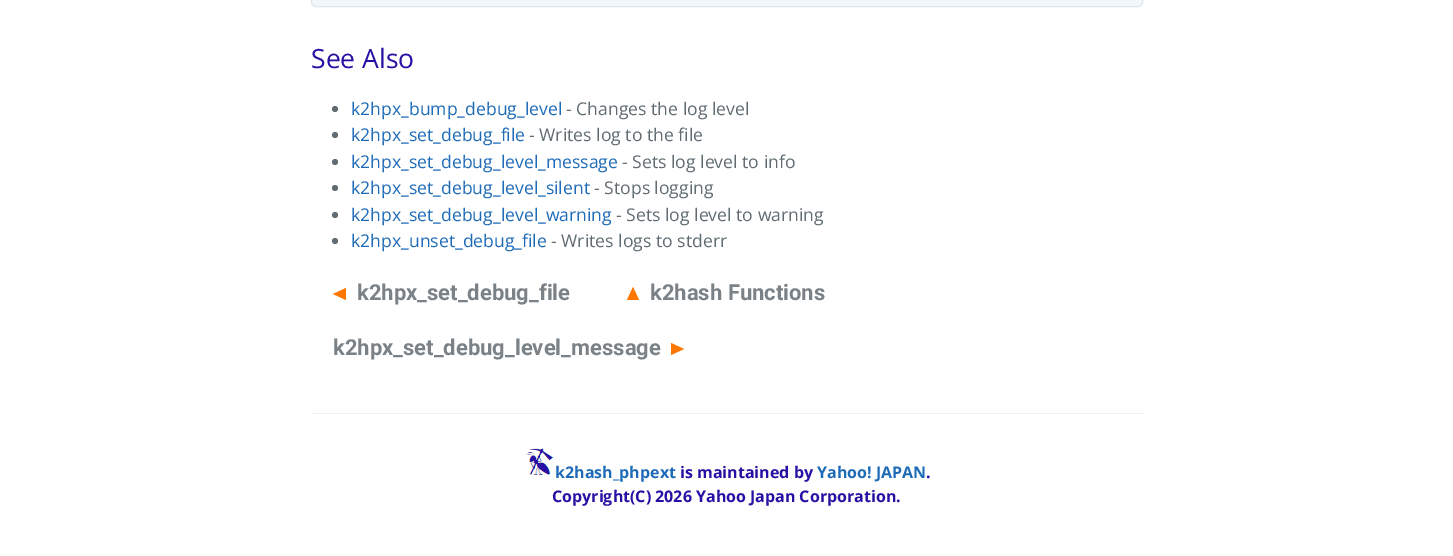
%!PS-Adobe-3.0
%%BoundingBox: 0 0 1453 556
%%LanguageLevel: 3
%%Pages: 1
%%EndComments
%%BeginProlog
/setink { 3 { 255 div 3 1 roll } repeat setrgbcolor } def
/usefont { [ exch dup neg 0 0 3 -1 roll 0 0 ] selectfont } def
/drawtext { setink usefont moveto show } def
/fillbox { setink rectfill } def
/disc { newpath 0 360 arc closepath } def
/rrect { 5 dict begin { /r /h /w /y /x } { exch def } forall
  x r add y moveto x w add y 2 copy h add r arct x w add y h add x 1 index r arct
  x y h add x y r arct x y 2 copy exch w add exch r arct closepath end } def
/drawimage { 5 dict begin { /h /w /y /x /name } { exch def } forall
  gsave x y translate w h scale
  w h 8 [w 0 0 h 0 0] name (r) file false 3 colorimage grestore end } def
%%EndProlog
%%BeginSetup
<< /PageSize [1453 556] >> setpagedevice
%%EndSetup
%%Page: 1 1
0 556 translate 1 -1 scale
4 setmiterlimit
0 0 1453 556 255 255 255 fillbox
243 246 250 setink
311.5 -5.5 831 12 4.5 rrect gsave fill grestore
220 230 240 setink
stroke
(See Also) 311 68 /OpenSans-Regular 26.5 39 17 165 drawtext
96 108 113 setink
335 109 3 disc fill
(k2hpx_bump_debug_level) 351 115 /OpenSans-Regular 17.6 30 107 184 drawtext
(- Changes the log level) 566 115 /OpenSans-Regular 17.6 96 108 113 drawtext
335 135 3 disc fill
(k2hpx_set_debug_file) 351 141 /OpenSans-Regular 17.6 30 107 184 drawtext
(- Writes log to the file) 529 141 /OpenSans-Regular 17.6 96 108 113 drawtext
335 162 3 disc fill
(k2hpx_set_debug_level_message) 351 168 /OpenSans-Regular 17.6 30 107 184 drawtext
(- Sets log level to info) 622 168 /OpenSans-Regular 17.6 96 108 113 drawtext
335 188 3 disc fill
(k2hpx_set_debug_level_silent) 351 194 /OpenSans-Regular 17.6 30 107 184 drawtext
(- Stops logging) 594 194 /OpenSans-Regular 17.6 96 108 113 drawtext
335 215 3 disc fill
(k2hpx_set_debug_level_warning) 351 221 /OpenSans-Regular 17.6 30 107 184 drawtext
(- Sets log level to warning) 616 221 /OpenSans-Regular 17.6 96 108 113 drawtext
335 241 3 disc fill
(k2hpx_unset_debug_file) 351 247 /OpenSans-Regular 17.6 30 107 184 drawtext
(- Writes logs to stderr) 551 247 /OpenSans-Regular 17.6 96 108 113 drawtext
255 119 0 setink
346 288 moveto 346 300 lineto 333 294 lineto closepath fill
(k2hpx_set_debug_file) 357 300 /Roboto-Bold 22 122 130 136 drawtext
255 119 0 setink
639 300 moveto 627 300 lineto 633 287 lineto closepath fill
(k2hash Functions) 650 300 /Roboto-Bold 22 122 130 136 drawtext
(k2hpx_set_debug_level_message) 333 355 /Roboto-Bold 22 122 130 136 drawtext
255 119 0 setink
671 355 moveto 671 343 lineto 684 349 lineto closepath fill
311 413 832 1 239 240 241 fillbox
(assets/img1.rgb) 526 448 28 27 drawimage
(k2hash_phpext) 555 478 /OpenSans-Bold 16 30 107 184 drawtext
(is maintained by) 680 478 /OpenSans-Bold 16 39 17 165 drawtext
(Yahoo! JAPAN) 817 478 /OpenSans-Bold 16 30 107 184 drawtext
(.) 926 478 /OpenSans-Bold 16 39 17 165 drawtext
(Copyright\(C\) 2026 Yahoo Japan Corporation.) 552 502 /OpenSans-Bold 16 39 17 165 drawtext
showpage
%%EOF
